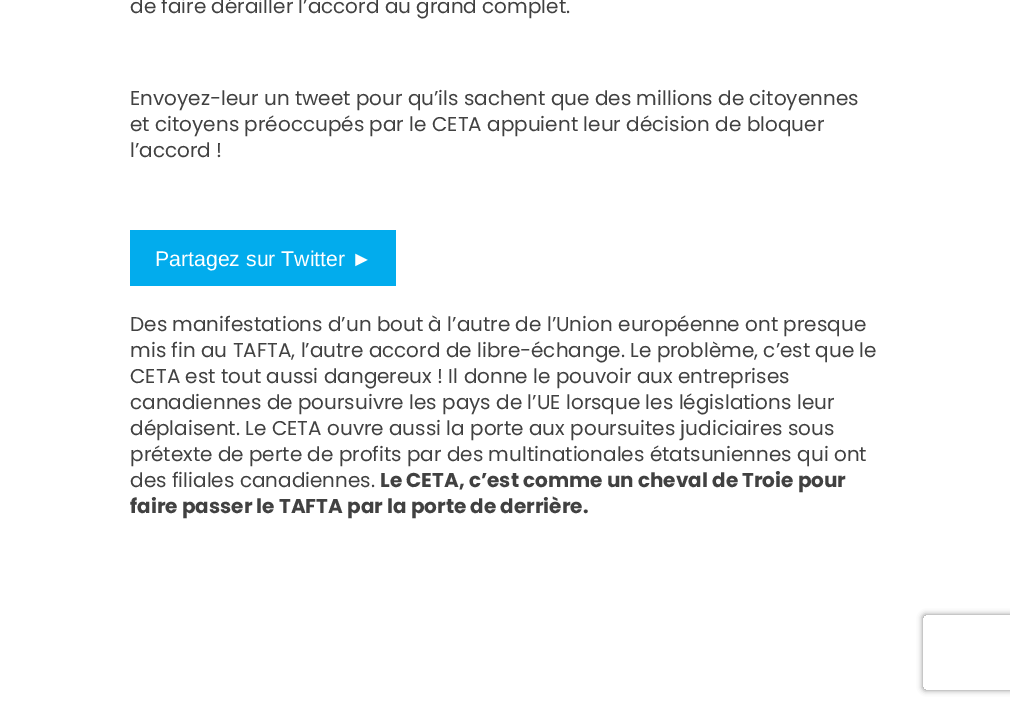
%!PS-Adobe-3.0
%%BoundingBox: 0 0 1010 707
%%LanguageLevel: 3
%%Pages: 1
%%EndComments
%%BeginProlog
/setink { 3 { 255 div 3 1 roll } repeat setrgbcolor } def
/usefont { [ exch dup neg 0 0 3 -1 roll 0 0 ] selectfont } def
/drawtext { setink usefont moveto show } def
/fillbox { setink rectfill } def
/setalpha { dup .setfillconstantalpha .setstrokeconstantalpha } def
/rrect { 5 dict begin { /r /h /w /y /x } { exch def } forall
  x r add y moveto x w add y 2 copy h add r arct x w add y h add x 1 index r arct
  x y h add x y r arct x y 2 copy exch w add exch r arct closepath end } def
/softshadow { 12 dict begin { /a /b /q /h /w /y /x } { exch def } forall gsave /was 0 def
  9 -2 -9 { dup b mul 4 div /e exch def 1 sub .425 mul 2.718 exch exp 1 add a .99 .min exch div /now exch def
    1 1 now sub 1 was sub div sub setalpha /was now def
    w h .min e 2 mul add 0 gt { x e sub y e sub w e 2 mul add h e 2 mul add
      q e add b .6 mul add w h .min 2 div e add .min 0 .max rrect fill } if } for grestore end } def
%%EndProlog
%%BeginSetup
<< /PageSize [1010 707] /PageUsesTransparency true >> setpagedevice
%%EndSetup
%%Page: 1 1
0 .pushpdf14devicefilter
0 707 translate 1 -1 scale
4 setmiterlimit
0 0 1010 707 255 255 255 fillbox
(de faire dérailler l’accord au grand complet.) 130 13 /Poppins-Regular 20 65 65 65 drawtext
(Envoyez-leur un tweet pour qu’ils sachent que des millions de citoyennes) 130 105 /Poppins-Regular 20 65 65 65 drawtext
(et citoyens préoccupés par le CETA appuient leur décision de bloquer) 130 131 /Poppins-Regular 20 65 65 65 drawtext
(l’accord !) 130 157 /Poppins-Regular 20 65 65 65 drawtext
130 230 266 56 2 172 237 fillbox
(Partagez sur Twitter ►) 155 266 /LiberationSans-Regular 21.25 255 255 255 drawtext
(Des manifestations d’un bout à l’autre de l’Union européenne ont presque) 130 331 /Poppins-Regular 20 65 65 65 drawtext
(mis fin au TAFTA, l’autre accord de libre-échange. Le problème, c’est que le) 130 357 /Poppins-Regular 20 65 65 65 drawtext
(CETA est tout aussi dangereux ! Il donne le pouvoir aux entreprises) 130 383 /Poppins-Regular 20 65 65 65 drawtext
(canadiennes de poursuivre les pays de l’UE lorsque les législations leur) 130 409 /Poppins-Regular 20 65 65 65 drawtext
(déplaisent. Le CETA ouvre aussi la porte aux poursuites judiciaires sous) 130 435 /Poppins-Regular 20 65 65 65 drawtext
(prétexte de perte de profits par des multinationales étatsuniennes qui ont) 130 461 /Poppins-Regular 20 65 65 65 drawtext
(des filiales canadiennes.) 130 487 /Poppins-Regular 20 65 65 65 drawtext
(Le CETA, c’est comme un cheval de Troie pour) 380 487 /Poppins-Bold 20 65 65 65 drawtext
(faire passer le TAFTA par la porte de derrière.) 130 513 /Poppins-Bold 20 65 65 65 drawtext
gsave
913 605 moveto 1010 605 lineto 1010 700 lineto 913 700 lineto closepath 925.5 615 moveto 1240.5 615 lineto 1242 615 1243 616 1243 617.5 curveto 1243 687.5 lineto 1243 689 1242 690 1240.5 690 curveto 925.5 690 lineto 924 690 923 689 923 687.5 curveto 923 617.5 lineto 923 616 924 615 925.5 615 curveto closepath eoclip newpath
128 128 128 setink
923 615 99 75 2.5 3 1 softshadow
grestore
.poppdf14devicefilter showpage
%%EOF
